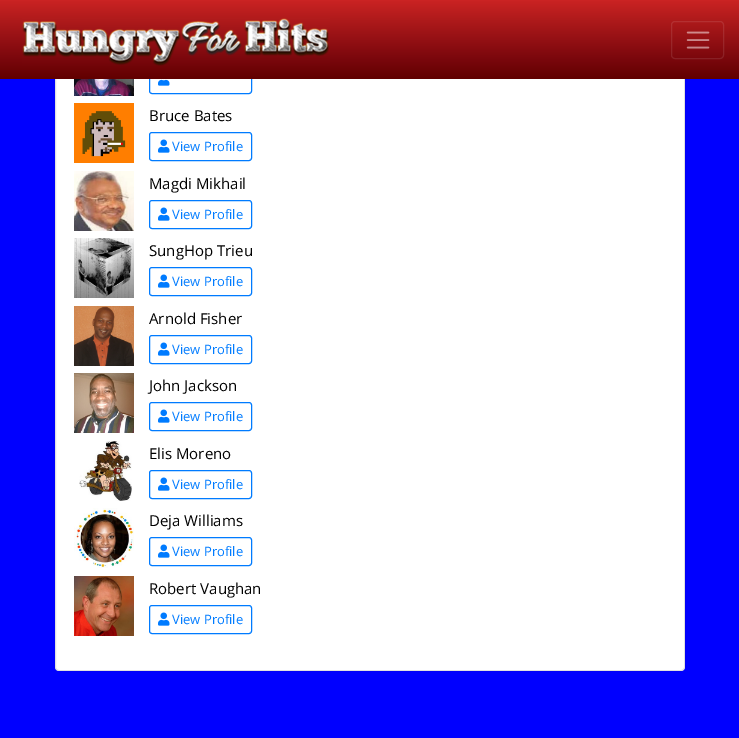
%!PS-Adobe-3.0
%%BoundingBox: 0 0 739 738
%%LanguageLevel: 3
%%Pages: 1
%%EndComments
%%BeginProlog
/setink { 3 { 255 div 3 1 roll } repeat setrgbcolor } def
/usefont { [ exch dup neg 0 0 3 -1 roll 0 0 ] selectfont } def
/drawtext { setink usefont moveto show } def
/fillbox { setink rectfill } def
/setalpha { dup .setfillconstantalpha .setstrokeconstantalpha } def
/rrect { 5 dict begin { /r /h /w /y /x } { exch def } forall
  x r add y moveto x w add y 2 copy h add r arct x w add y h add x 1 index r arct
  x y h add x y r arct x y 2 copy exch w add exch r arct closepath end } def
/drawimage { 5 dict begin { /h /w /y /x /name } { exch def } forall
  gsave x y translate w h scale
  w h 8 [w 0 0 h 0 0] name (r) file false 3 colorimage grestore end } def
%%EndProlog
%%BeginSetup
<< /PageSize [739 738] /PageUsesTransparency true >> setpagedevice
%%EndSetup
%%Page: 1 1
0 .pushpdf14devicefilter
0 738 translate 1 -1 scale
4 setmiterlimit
0 0 739 738 0 0 255 fillbox
255 255 255 setink
55 -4 630 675 4 rrect fill
0.12 setalpha
0 0 0 setink
55.5 -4.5 629 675 3.5 rrect stroke
1 setalpha
0 123 255 setink
149.5 65.5 102 28 2.5 rrect stroke
gsave 0 0 moveto 739 0 lineto 739 79 lineto 0 79 lineto closepath clip newpath
<< /ShadingType 2 /ColorSpace /DeviceRGB /Coords [370 79 370 0] /Extend [true true] /Function << /FunctionType 3 /Domain [0 1] /Functions [<< /FunctionType 2 /Domain [0 1] /C0 [0.38 0 0] /C1 [0.478 0.027 0.047] /N 1 >> << /FunctionType 2 /Domain [0 1] /C0 [0.478 0.027 0.047] /C1 [0.58 0.063 0.078] /N 1 >> << /FunctionType 2 /Domain [0 1] /C0 [0.58 0.063 0.078] /C1 [0.686 0.102 0.106] /N 1 >> << /FunctionType 2 /Domain [0 1] /C0 [0.686 0.102 0.106] /C1 [0.796 0.137 0.137] /N 1 >>] /Bounds [0.25 0.5 0.75] /Encode [0 1 0 1 0 1 0 1] >> >> shfill grestore
(assets/img1.rgb) 22 18 308 48 drawimage
0.1 setalpha
255 255 255 setink
671.5 21.5 52 37 3.5 rrect stroke
1 setalpha
(assets/img2.rgb) 686 31 24 18 drawimage
(assets/img3.rgb) 74 79 60 17 drawimage
(assets/img4.rgb) 158 79 12 7 drawimage
(assets/img5.rgb) 74 103 60 60 drawimage
(Bruce Bates) 149 121 /OpenSans-Regular 15 0 0 0 drawtext
0 123 255 setink
149.5 132.5 102 28 2.5 rrect stroke
(assets/img6.rgb) 158 139 12 14 drawimage
(View Profile) 172 151 /OpenSans-Regular 13 0 123 255 drawtext
(assets/img7.rgb) 74 171 60 60 drawimage
(Magdi Mikhail) 149 189 /OpenSans-Regular 15 0 0 0 drawtext
0 123 255 setink
149.5 200.5 102 28 2.5 rrect stroke
(assets/img6.rgb) 158 207 12 14 drawimage
(View Profile) 172 219 /OpenSans-Regular 13 0 123 255 drawtext
(assets/img8.rgb) 74 238 60 60 drawimage
(SungHop Trieu) 149 256 /OpenSans-Regular 15 0 0 0 drawtext
0 123 255 setink
149.5 267.5 102 28 2.5 rrect stroke
(assets/img6.rgb) 158 274 12 14 drawimage
(View Profile) 172 286 /OpenSans-Regular 13 0 123 255 drawtext
(assets/img9.rgb) 74 306 60 60 drawimage
(Arnold Fisher) 149 324 /OpenSans-Regular 15 0 0 0 drawtext
0 123 255 setink
149.5 335.5 102 28 2.5 rrect stroke
(assets/img6.rgb) 158 342 12 14 drawimage
(View Profile) 172 354 /OpenSans-Regular 13 0 123 255 drawtext
(assets/img10.rgb) 74 373 60 60 drawimage
(John Jackson) 149 391 /OpenSans-Regular 15 0 0 0 drawtext
0 123 255 setink
149.5 402.5 102 28 2.5 rrect stroke
(assets/img6.rgb) 158 409 12 14 drawimage
(View Profile) 172 421 /OpenSans-Regular 13 0 123 255 drawtext
(assets/img11.rgb) 79 441 53 60 drawimage
(Elis Moreno) 149 459 /OpenSans-Regular 15 0 0 0 drawtext
0 123 255 setink
149.5 470.5 102 28 2.5 rrect stroke
(assets/img6.rgb) 158 477 12 14 drawimage
(View Profile) 172 489 /OpenSans-Regular 13 0 123 255 drawtext
(assets/img12.rgb) 74 508 60 60 drawimage
(Deja Williams) 149 526 /OpenSans-Regular 15 0 0 0 drawtext
0 123 255 setink
149.5 537.5 102 28 2.5 rrect stroke
(assets/img6.rgb) 158 544 12 14 drawimage
(View Profile) 172 556 /OpenSans-Regular 13 0 123 255 drawtext
(assets/img13.rgb) 74 576 60 60 drawimage
(Robert Vaughan) 149 594 /OpenSans-Regular 15 0 0 0 drawtext
0 123 255 setink
149.5 605.5 102 28 2.5 rrect stroke
(assets/img6.rgb) 158 612 12 14 drawimage
(View Profile) 172 624 /OpenSans-Regular 13 0 123 255 drawtext
.poppdf14devicefilter showpage
%%EOF
